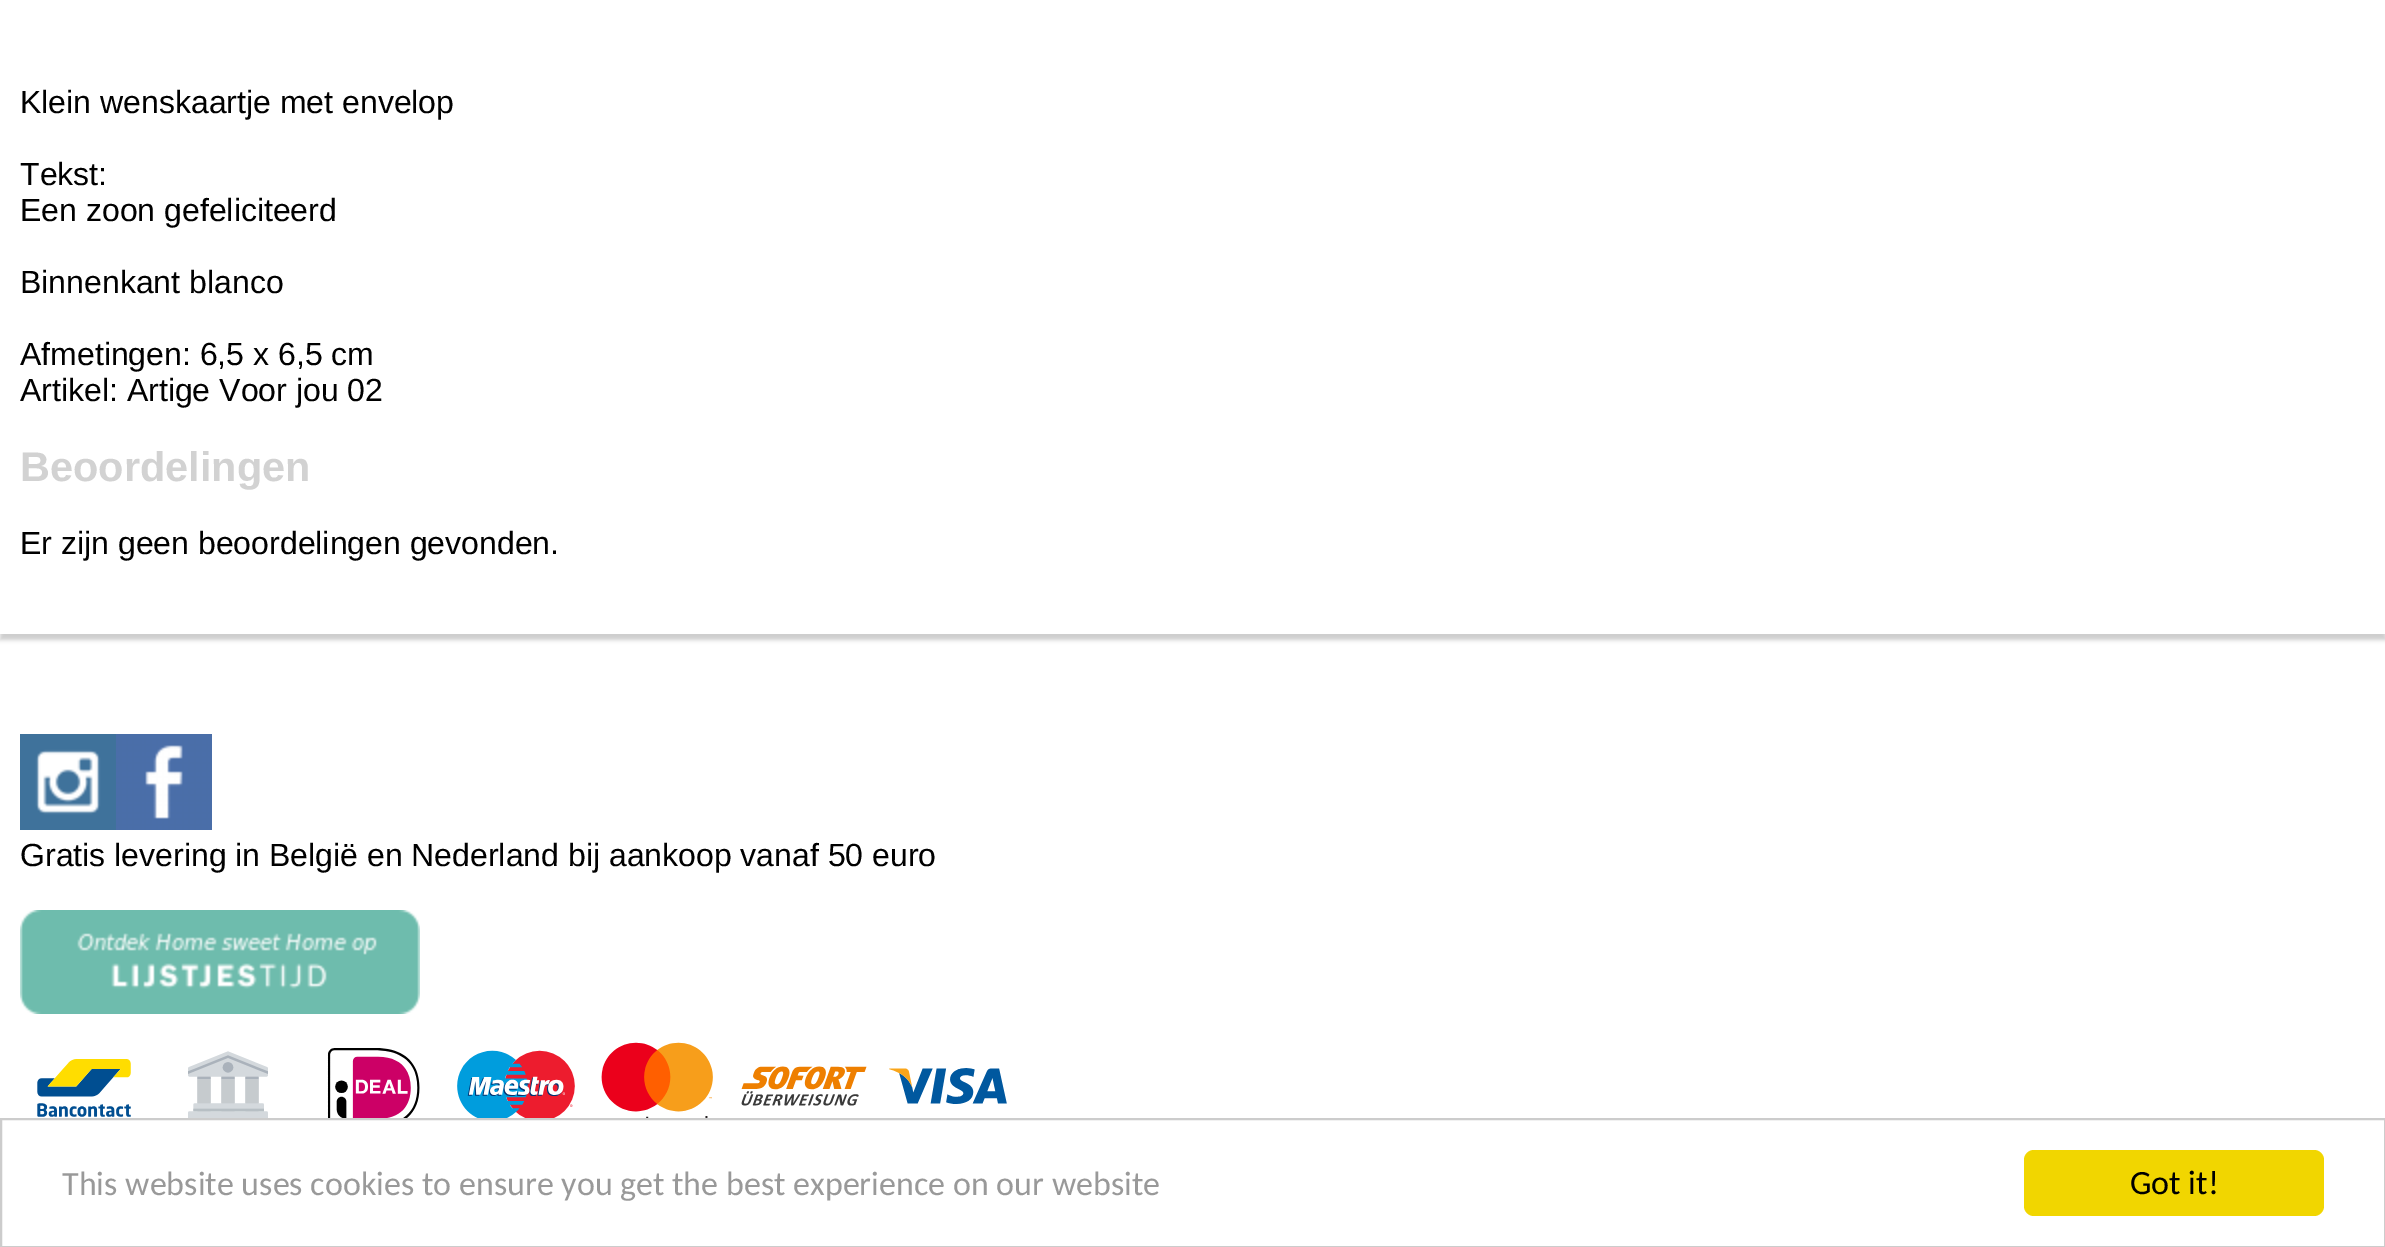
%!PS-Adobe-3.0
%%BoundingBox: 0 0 2385 1247
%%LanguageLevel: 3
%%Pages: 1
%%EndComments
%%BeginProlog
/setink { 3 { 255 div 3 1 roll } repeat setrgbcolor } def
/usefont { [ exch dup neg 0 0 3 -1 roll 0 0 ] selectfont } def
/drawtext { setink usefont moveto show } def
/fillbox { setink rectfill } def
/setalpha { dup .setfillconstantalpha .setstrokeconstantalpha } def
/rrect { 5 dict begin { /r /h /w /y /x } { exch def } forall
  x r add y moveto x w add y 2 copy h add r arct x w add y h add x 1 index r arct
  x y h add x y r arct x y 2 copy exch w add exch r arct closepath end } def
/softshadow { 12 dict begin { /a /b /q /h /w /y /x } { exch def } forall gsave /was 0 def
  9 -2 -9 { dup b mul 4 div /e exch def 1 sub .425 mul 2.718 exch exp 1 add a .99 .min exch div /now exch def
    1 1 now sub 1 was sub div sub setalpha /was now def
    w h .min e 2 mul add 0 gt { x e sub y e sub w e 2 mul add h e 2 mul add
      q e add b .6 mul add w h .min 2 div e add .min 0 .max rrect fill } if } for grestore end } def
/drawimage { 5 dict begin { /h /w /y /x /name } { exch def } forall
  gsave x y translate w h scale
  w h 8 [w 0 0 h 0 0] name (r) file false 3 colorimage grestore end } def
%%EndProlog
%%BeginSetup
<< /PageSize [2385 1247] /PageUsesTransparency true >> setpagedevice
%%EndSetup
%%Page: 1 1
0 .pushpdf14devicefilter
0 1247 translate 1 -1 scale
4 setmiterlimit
0 0 2385 1247 255 255 255 fillbox
204 204 204 setink
0 -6 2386 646 0 2 1 softshadow
0 0 2385 634 255 255 255 fillbox
(Klein wenskaartje met envelop) 20 113 /LiberationSans-Regular 32 0 0 0 drawtext
(Tekst:) 20 185 /LiberationSans-Regular 32 0 0 0 drawtext
(Een zoon gefeliciteerd) 20 221 /LiberationSans-Regular 32 0 0 0 drawtext
(Binnenkant blanco) 20 293 /LiberationSans-Regular 32 0 0 0 drawtext
(Afmetingen: 6,5 x 6,5 cm) 20 365 /LiberationSans-Regular 32 0 0 0 drawtext
(Artikel: Artige Voor jou 02) 20 401 /LiberationSans-Regular 32 0 0 0 drawtext
(Beoordelingen) 20 481 /LiberationSans-Bold 41.5 210 210 210 drawtext
(Er zijn geen beoordelingen gevonden.) 20 554 /LiberationSans-Regular 32 0 0 0 drawtext
(assets/img1.rgb) 20 734 96 96 drawimage
(assets/img2.rgb) 116 734 96 96 drawimage
(Gratis levering in België en Nederland bij aankoop vanaf 50 euro) 20 866 /LiberationSans-Regular 32 0 0 0 drawtext
(assets/img3.rgb) 20 910 400 104 drawimage
(assets/img4.rgb) 37 1059 94 58 drawimage
(assets/img5.rgb) 188 1051 80 67 drawimage
(assets/img6.rgb) 327 1048 93 70 drawimage
(assets/img7.rgb) 457 1050 118 68 drawimage
(assets/img8.rgb) 601 1042 112 76 drawimage
(assets/img9.rgb) 741 1066 126 40 drawimage
(assets/img10.rgb) 889 1068 118 36 drawimage
204 204 204 setink
2 setlinewidth
1 1119 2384 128 rectstroke
(This website uses cookies to ensure you get the best experience on our website) 62 1195 /Carlito-Regular 34 153 153 153 drawtext
241 214 0 setink
2024 1150 300 66 10 rrect fill
(Got it!) 2130 1194 /Carlito-Regular 34 0 0 0 drawtext
.poppdf14devicefilter showpage
%%EOF
